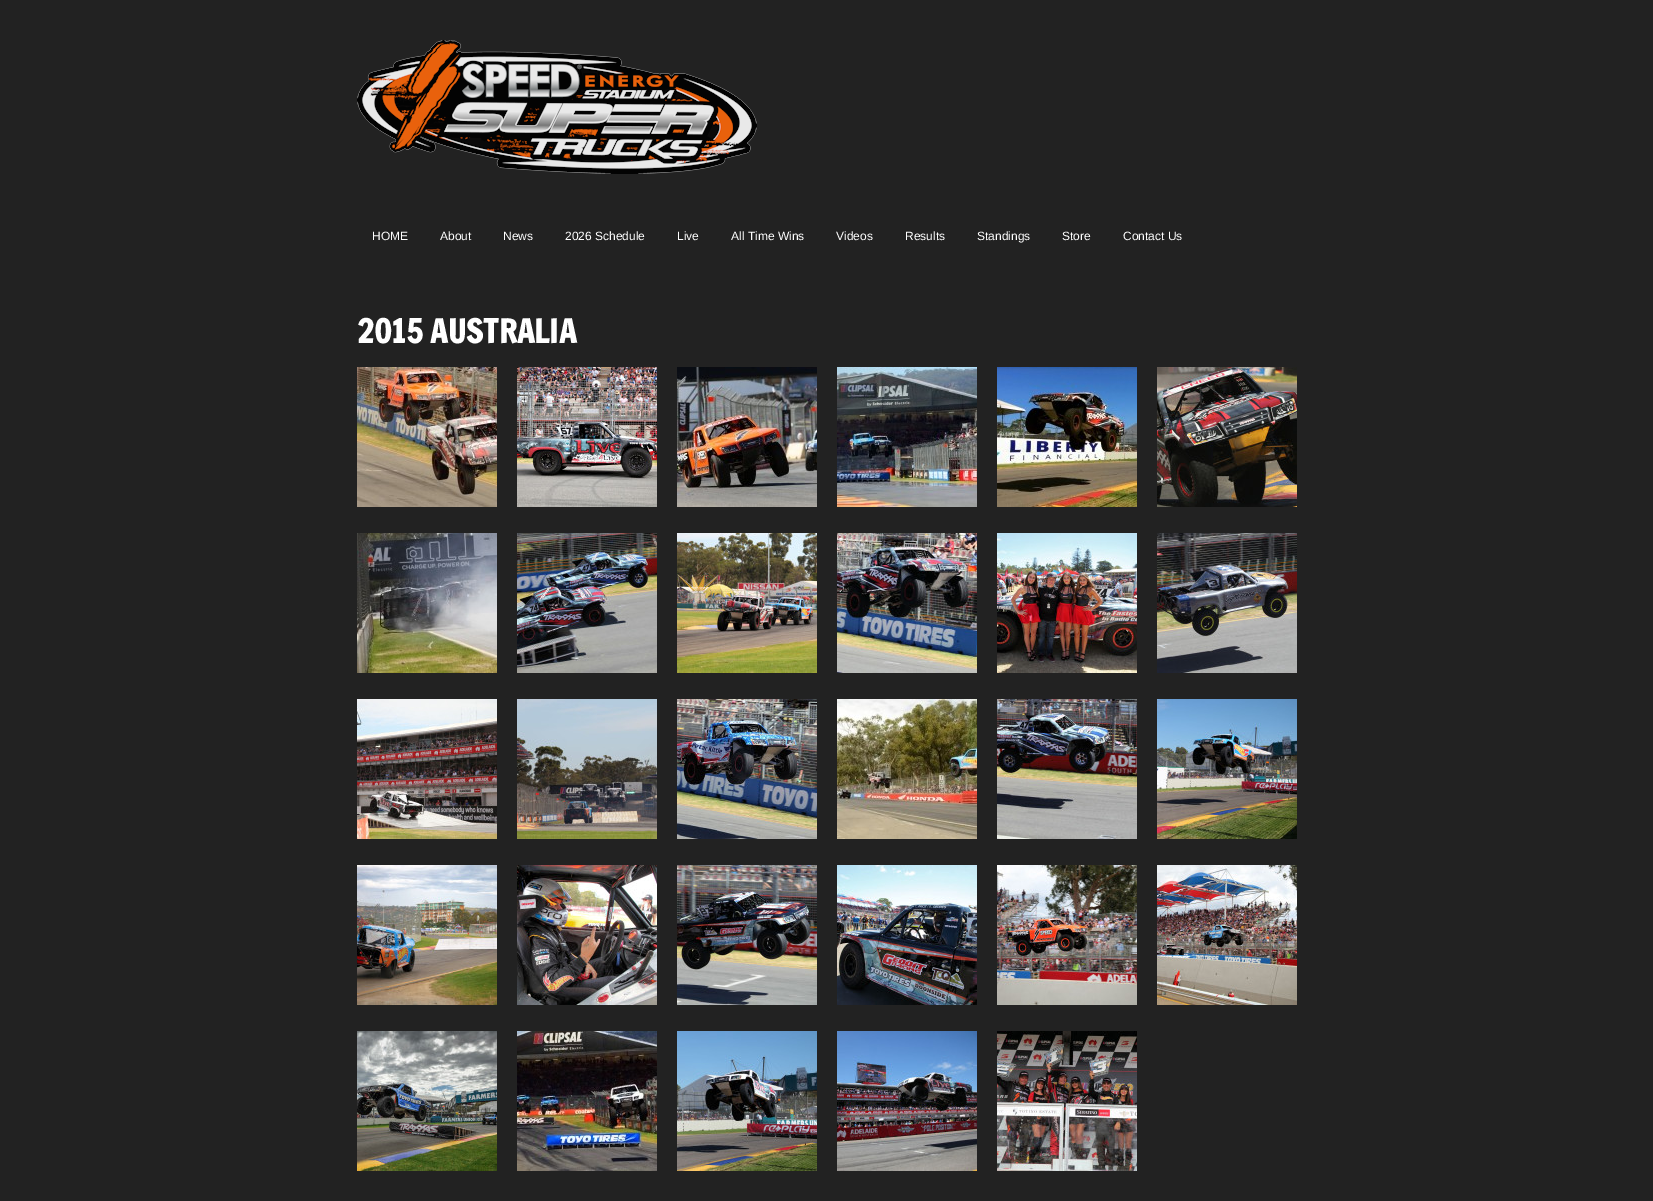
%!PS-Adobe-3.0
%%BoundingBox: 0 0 1653 1201
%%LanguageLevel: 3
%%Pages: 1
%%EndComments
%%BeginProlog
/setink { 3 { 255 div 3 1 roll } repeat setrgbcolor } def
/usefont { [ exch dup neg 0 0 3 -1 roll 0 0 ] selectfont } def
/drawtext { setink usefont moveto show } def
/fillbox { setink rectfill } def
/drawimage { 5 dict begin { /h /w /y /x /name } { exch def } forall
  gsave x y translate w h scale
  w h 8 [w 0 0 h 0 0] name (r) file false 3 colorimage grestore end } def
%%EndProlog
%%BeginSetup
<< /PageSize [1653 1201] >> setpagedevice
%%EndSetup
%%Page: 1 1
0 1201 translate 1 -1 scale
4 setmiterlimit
0 0 1653 1201 34 34 34 fillbox
(assets/img1.rgb) 357 40 400 134 drawimage
(HOME) 372 240 /LiberationSans-Regular 12 255 255 255 drawtext
(About) 440 240 /LiberationSans-Regular 12 255 255 255 drawtext
(News) 503 240 /LiberationSans-Regular 12 255 255 255 drawtext
(2026 Schedule) 565 240 /LiberationSans-Regular 12 255 255 255 drawtext
(Live) 677 240 /LiberationSans-Regular 12 255 255 255 drawtext
(All Time Wins) 731 240 /LiberationSans-Regular 12 255 255 255 drawtext
(Videos) 836 240 /LiberationSans-Regular 12 255 255 255 drawtext
(Results) 905 240 /LiberationSans-Regular 12 255 255 255 drawtext
(Standings) 977 240 /LiberationSans-Regular 12 255 255 255 drawtext
(Store) 1062 240 /LiberationSans-Regular 12 255 255 255 drawtext
(Contact Us) 1123 240 /LiberationSans-Regular 12 255 255 255 drawtext
(2015 AUSTRALIA) 357 343 /FrancoisOne-Bold 32 255 255 255 drawtext
(assets/img2.rgb) 357 367 140 140 drawimage
(assets/img3.rgb) 517 367 140 140 drawimage
(assets/img4.rgb) 677 367 140 140 drawimage
(assets/img5.rgb) 837 367 140 140 drawimage
(assets/img6.rgb) 997 367 140 140 drawimage
(assets/img7.rgb) 1157 367 140 140 drawimage
(assets/img8.rgb) 357 533 140 140 drawimage
(assets/img9.rgb) 517 533 140 140 drawimage
(assets/img10.rgb) 677 533 140 140 drawimage
(assets/img11.rgb) 837 533 140 140 drawimage
(assets/img12.rgb) 997 533 140 140 drawimage
(assets/img13.rgb) 1157 533 140 140 drawimage
(assets/img14.rgb) 357 699 140 140 drawimage
(assets/img15.rgb) 517 699 140 140 drawimage
(assets/img16.rgb) 677 699 140 140 drawimage
(assets/img17.rgb) 837 699 140 140 drawimage
(assets/img18.rgb) 997 699 140 140 drawimage
(assets/img19.rgb) 1157 699 140 140 drawimage
(assets/img20.rgb) 357 865 140 140 drawimage
(assets/img21.rgb) 517 865 140 140 drawimage
(assets/img22.rgb) 677 865 140 140 drawimage
(assets/img23.rgb) 837 865 140 140 drawimage
(assets/img24.rgb) 997 865 140 140 drawimage
(assets/img25.rgb) 1157 865 140 140 drawimage
(assets/img26.rgb) 357 1031 140 140 drawimage
(assets/img27.rgb) 517 1031 140 140 drawimage
(assets/img28.rgb) 677 1031 140 140 drawimage
(assets/img29.rgb) 837 1031 140 140 drawimage
(assets/img30.rgb) 997 1031 140 140 drawimage
showpage
%%EOF
